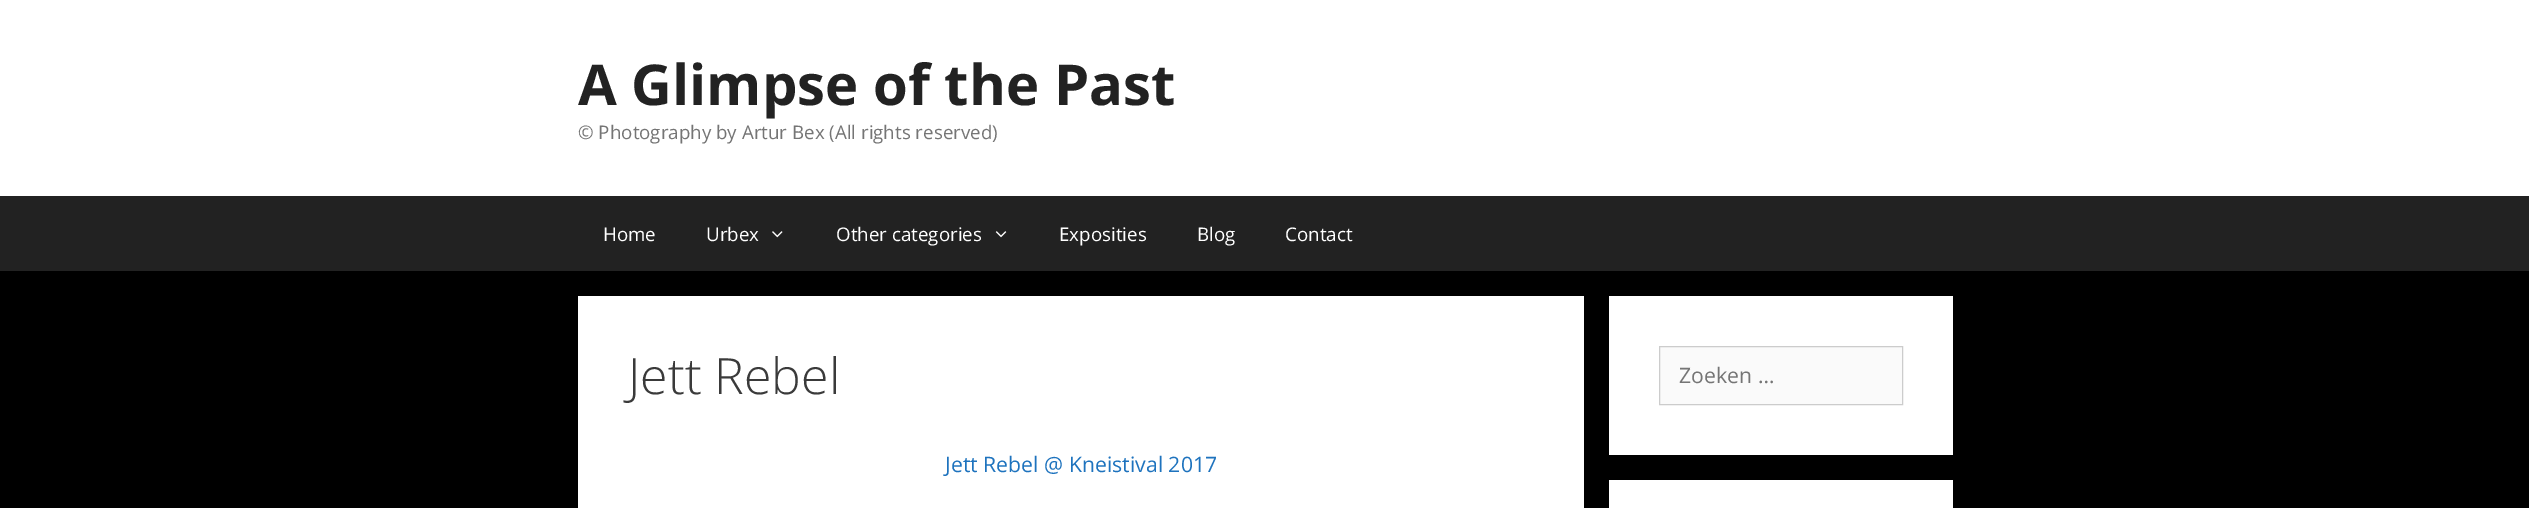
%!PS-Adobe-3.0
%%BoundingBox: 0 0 2529 508
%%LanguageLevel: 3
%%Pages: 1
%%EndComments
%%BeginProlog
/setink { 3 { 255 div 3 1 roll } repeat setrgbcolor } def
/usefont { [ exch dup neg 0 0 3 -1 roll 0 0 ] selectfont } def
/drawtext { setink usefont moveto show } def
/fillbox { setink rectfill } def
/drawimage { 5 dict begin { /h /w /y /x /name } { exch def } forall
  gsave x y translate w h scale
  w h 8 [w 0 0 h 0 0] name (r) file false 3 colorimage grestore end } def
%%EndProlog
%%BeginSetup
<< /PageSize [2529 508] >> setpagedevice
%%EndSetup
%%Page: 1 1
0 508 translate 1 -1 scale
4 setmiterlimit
0 0 2529 508 0 0 0 fillbox
0 0 2529 196 255 255 255 fillbox
(A Glimpse of the Past) 578 105 /OpenSans-Bold 56.25 34 34 34 drawtext
(© Photography by Artur Bex \(All rights reserved\)) 578 139 /OpenSans-Regular 18.75 117 117 117 drawtext
0 196 2529 75 34 34 34 fillbox
(Home) 603 241 /OpenSans-Regular 18.75 255 255 255 drawtext
(Urbex) 706 241 /OpenSans-Regular 18.75 255 255 255 drawtext
(assets/img1.rgb) 772 231 11 7 drawimage
(Other categories) 836 241 /OpenSans-Regular 18.75 255 255 255 drawtext
(assets/img2.rgb) 995 231 12 7 drawimage
(Exposities) 1059 241 /OpenSans-Regular 18.75 255 255 255 drawtext
(Blog) 1197 241 /OpenSans-Regular 18.75 255 255 255 drawtext
(Contact) 1285 241 /OpenSans-Regular 18.75 255 255 255 drawtext
578 296 1006 212 255 255 255 fillbox
(Jett Rebel) 628 394 /OpenSans-Light 50 58 58 58 drawtext
(Jett Rebel @ Kneistival 2017) 945 472 /OpenSans-Regular 21.25 30 115 190 drawtext
1609 296 344 159 255 255 255 fillbox
250 250 250 setink
1659.5 346.5 moveto 1902.5 346.5 lineto 1902.5 404.5 lineto 1659.5 404.5 lineto closepath gsave fill grestore
204 204 204 setink
stroke
(Zoeken …) 1679 383 /OpenSans-Regular 21.25 117 117 117 drawtext
1609 480 344 28 255 255 255 fillbox
showpage
%%EOF
